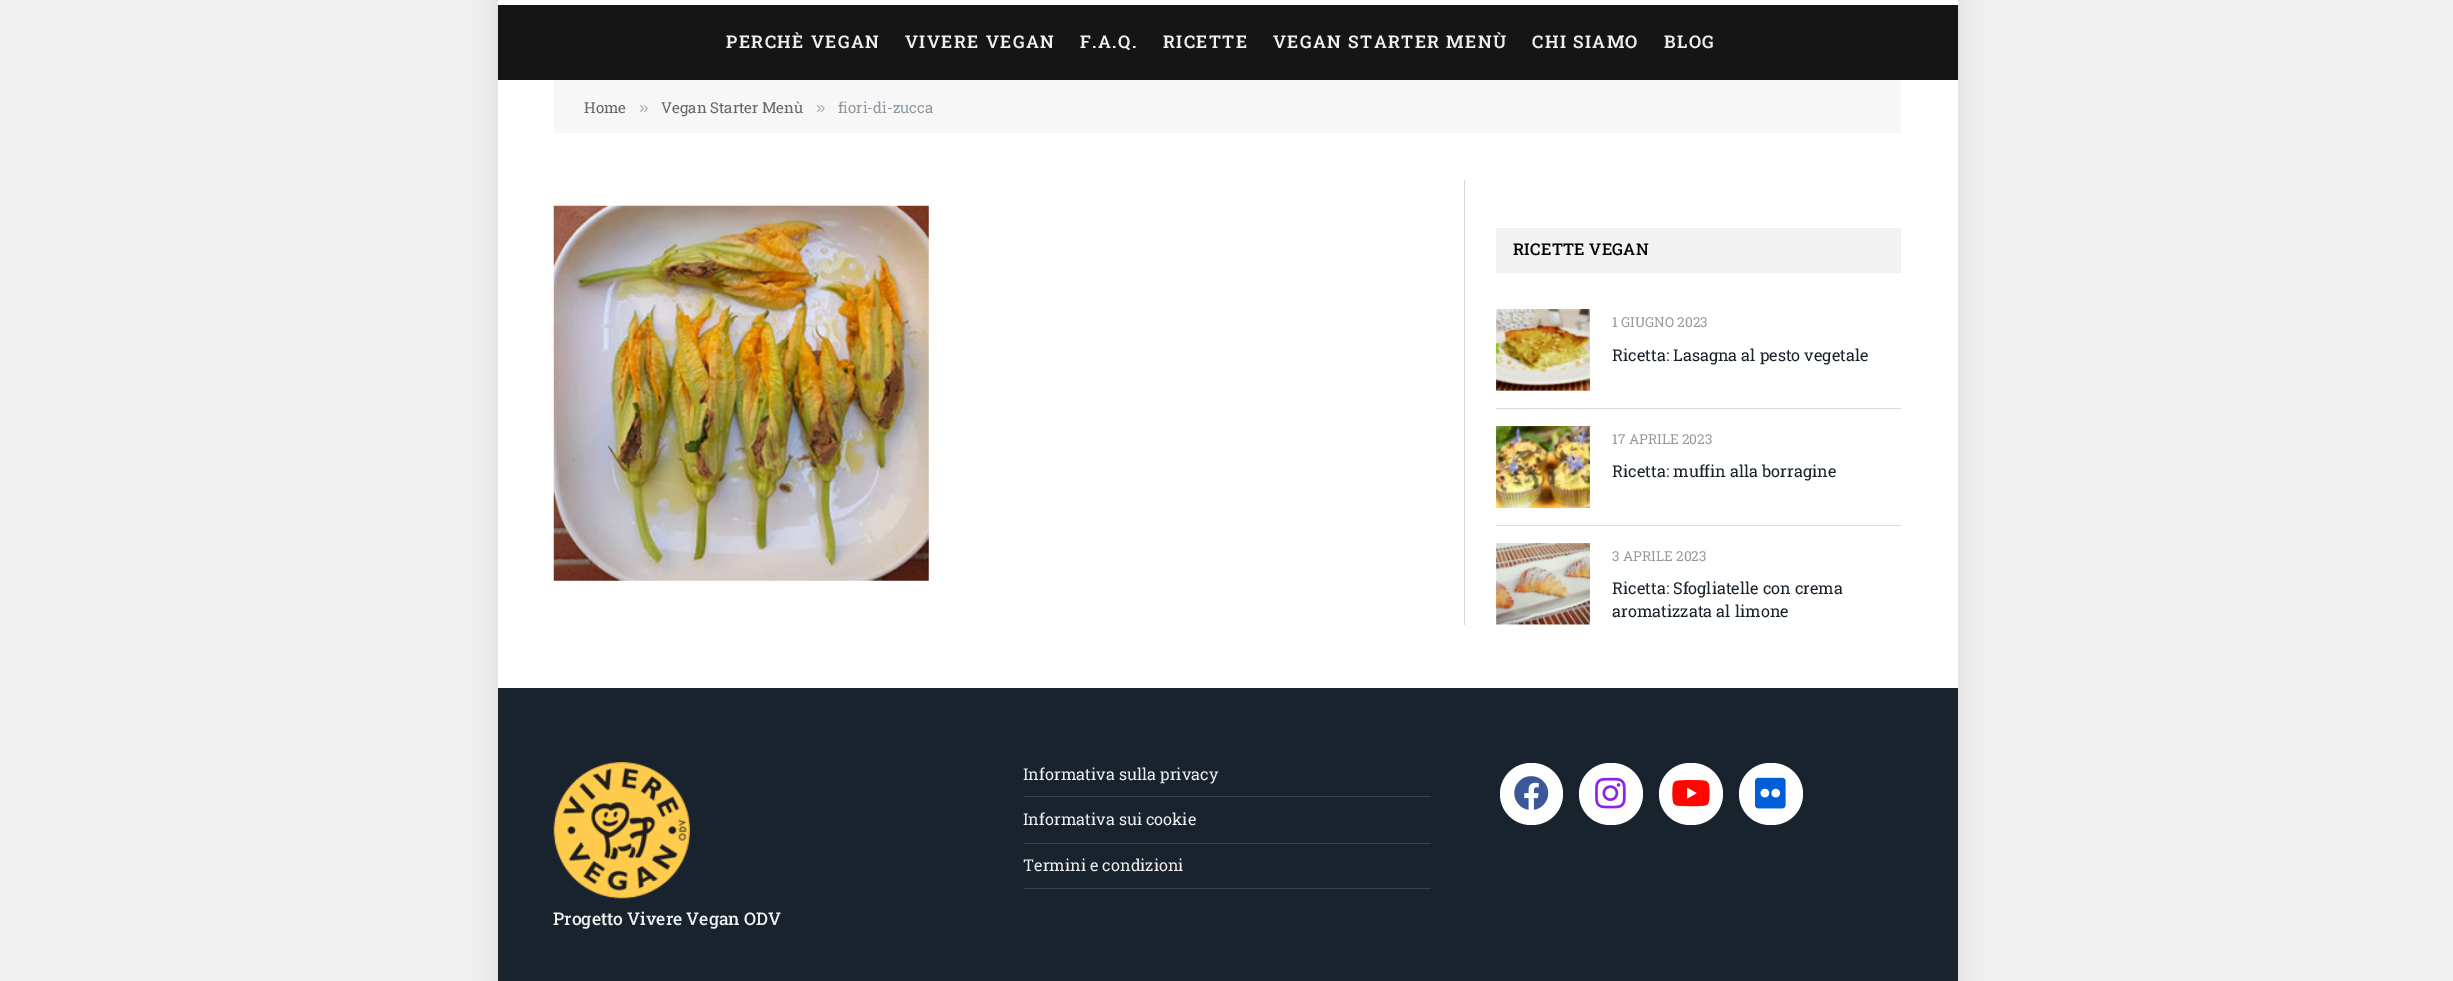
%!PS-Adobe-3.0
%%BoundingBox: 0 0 2453 981
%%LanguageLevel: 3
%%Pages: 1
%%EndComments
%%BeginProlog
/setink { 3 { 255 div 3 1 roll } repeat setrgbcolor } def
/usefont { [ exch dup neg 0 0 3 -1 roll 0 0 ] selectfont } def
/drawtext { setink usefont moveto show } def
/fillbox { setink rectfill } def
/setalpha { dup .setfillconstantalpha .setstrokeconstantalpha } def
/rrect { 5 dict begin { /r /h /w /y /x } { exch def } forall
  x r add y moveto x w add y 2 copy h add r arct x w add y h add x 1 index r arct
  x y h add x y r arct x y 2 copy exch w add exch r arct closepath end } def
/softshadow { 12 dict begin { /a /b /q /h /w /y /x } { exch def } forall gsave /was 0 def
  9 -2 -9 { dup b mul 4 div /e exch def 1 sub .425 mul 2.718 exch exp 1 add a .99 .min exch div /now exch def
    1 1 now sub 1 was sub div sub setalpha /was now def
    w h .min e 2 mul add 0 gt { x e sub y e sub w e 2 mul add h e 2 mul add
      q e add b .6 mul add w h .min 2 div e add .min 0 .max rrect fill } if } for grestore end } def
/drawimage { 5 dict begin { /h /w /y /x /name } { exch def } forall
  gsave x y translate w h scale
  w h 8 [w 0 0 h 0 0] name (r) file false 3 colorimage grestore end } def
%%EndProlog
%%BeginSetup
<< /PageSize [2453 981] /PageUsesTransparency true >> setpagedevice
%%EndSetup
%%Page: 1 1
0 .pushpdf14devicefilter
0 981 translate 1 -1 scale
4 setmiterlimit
0 0 2453 981 239 239 239 fillbox
0 0 0 setink
498 -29 1460 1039 0 9.5 0.08 softshadow
498 0 1460 688 255 255 255 fillbox
498 5 1460 75 21 21 21 fillbox
/RobotoSlab-SemiBold 17.5 usefont
238 238 238 setink
726 48 moveto 1.4 0 (PERCHÈ VEGAN) ashow
905 48 moveto 1.4 0 (VIVERE VEGAN) ashow
1080 48 moveto 1.4 0 (F.A.Q.) ashow
1163 48 moveto 1.4 0 (RICETTE) ashow
1273 48 moveto 1.4 0 (VEGAN STARTER MENÙ) ashow
1532 48 moveto 1.4 0 (CHI SIAMO) ashow
1664 48 moveto 1.4 0 (BLOG) ashow
554 80 1347 53 247 247 247 fillbox
(Home) 584 113 /RobotoSlab-Regular 15 102 102 102 drawtext
(») 639 113 /LiberationSans-Regular 17 162 170 178 drawtext
(Vegan Starter Menù) 661 113 /RobotoSlab-Regular 15 102 102 102 drawtext
(») 816 113 /LiberationSans-Regular 17 162 170 178 drawtext
(fiori-di-zucca) 838 113 /RobotoSlab-Regular 15 141 151 161 drawtext
(assets/img1.rgb) 553 205 376 376 drawimage
1464 180 1 445 217 217 217 fillbox
1496 228 405 45 242 242 242 fillbox
/RobotoSlab-Medium 16.25 usefont
0 0 0 setink
1513 255 moveto 0.3 0 (RICETTE VEGAN) ashow
(assets/img2.rgb) 1496 309 94 82 drawimage
(1 GIUGNO 2023) 1612 327 /RobotoSlab-Regular 13.75 153 153 153 drawtext
(Ricetta: Lasagna al pesto vegetale) 1612 361 /RobotoSlab-Regular 16.25 25 35 45 drawtext
1496 408 405 1 217 217 217 fillbox
(assets/img3.rgb) 1496 426 94 82 drawimage
(17 APRILE 2023) 1612 444 /RobotoSlab-Regular 13.75 153 153 153 drawtext
(Ricetta: muffin alla borragine) 1612 477 /RobotoSlab-Regular 16.25 25 35 45 drawtext
1496 525 405 1 217 217 217 fillbox
(assets/img4.rgb) 1496 543 94 82 drawimage
(3 APRILE 2023) 1612 561 /RobotoSlab-Regular 13.75 153 153 153 drawtext
(Ricetta: Sfogliatelle con crema) 1612 594 /RobotoSlab-Regular 16.25 25 35 45 drawtext
(aromatizzata al limone) 1612 617 /RobotoSlab-Regular 16.25 25 35 45 drawtext
498 688 1460 293 25 35 45 fillbox
1024 796 407 1 55 64 72 fillbox
(Informativa sulla privacy) 1023 780 /RobotoSlab-Regular 16.25 238 238 238 drawtext
1024 843 407 1 55 64 72 fillbox
(Informativa sui cookie) 1023 825 /RobotoSlab-Regular 16.25 238 238 238 drawtext
1024 888 407 1 55 64 72 fillbox
(Termini e condizioni) 1023 871 /RobotoSlab-Regular 16.25 238 238 238 drawtext
255 255 255 setink
1500 763 63 62 31 rrect fill
(assets/img5.rgb) 1514 776 35 34 drawimage
1579 763 64 62 31 rrect fill
(assets/img6.rgb) 1595 777 31 32 drawimage
1659 763 64 62 31 rrect fill
(assets/img7.rgb) 1672 780 38 27 drawimage
1739 763 64 62 31 rrect fill
(assets/img8.rgb) 1755 777 31 32 drawimage
(assets/img9.rgb) 553 762 137 137 drawimage
(Progetto Vivere Vegan ODV) 553 925 /RobotoSlab-Medium 17.5 238 238 238 drawtext
.poppdf14devicefilter showpage
%%EOF
